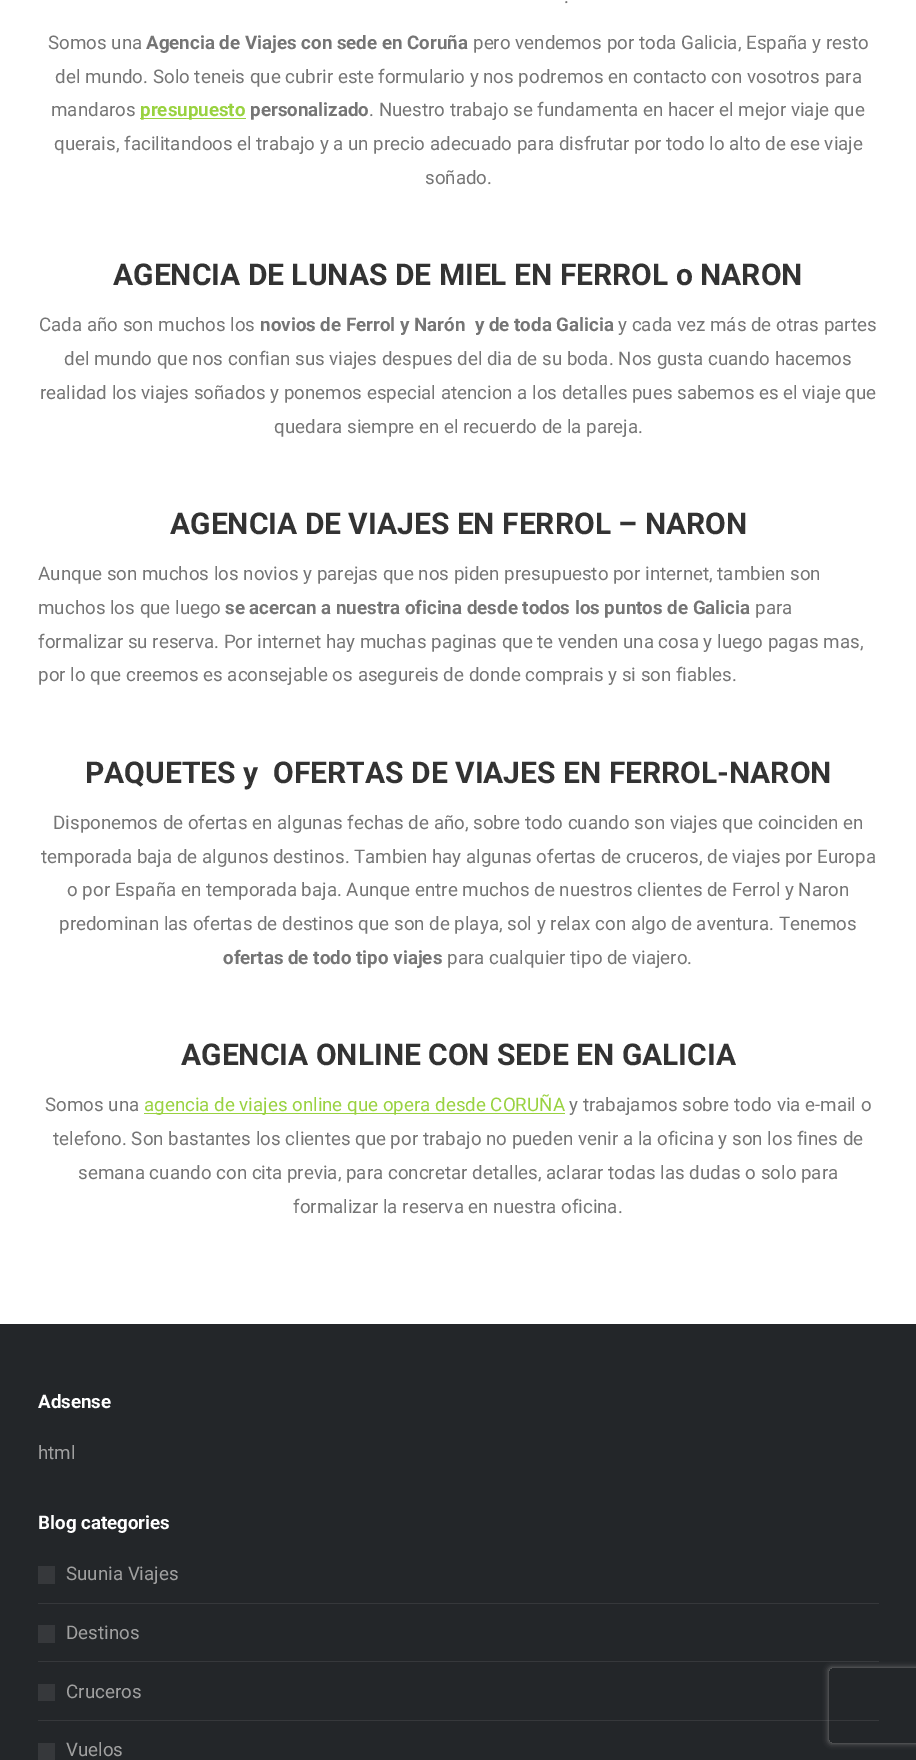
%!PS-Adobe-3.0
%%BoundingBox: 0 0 916 1760
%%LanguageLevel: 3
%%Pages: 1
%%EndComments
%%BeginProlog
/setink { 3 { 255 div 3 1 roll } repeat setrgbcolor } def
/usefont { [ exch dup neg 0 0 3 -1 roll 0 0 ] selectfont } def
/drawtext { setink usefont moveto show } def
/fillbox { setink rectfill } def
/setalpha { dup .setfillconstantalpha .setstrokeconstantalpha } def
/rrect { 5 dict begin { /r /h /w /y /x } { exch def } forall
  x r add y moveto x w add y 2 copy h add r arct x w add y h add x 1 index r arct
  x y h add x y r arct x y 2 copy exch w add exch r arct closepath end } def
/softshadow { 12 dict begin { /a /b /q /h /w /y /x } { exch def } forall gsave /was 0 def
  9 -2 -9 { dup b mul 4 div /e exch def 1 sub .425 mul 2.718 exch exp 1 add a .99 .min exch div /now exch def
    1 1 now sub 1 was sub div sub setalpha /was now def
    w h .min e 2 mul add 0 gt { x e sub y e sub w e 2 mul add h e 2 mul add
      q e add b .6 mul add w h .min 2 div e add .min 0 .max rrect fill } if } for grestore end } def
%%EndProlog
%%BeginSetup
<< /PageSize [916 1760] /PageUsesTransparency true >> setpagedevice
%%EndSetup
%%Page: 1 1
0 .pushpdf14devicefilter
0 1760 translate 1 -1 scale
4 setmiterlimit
0 0 916 1760 255 255 255 fillbox
(.) 564 3 /Roboto-Regular 18.75 117 117 117 drawtext
(Somos una) 48 49 /Roboto-Regular 18.75 117 117 117 drawtext
(Agencia de Viajes con sede en Coruña) 146 49 /Roboto-Bold 18.75 117 117 117 drawtext
(pero vendemos por toda Galicia, España y resto) 473 49 /Roboto-Regular 18.75 117 117 117 drawtext
(del mundo. Solo teneis que cubrir este formulario y nos podremos en contacto con vosotros para) 55 83 /Roboto-Regular 18.75 117 117 117 drawtext
(mandaros) 51 116 /Roboto-Regular 18.75 117 117 117 drawtext
140 118 106 1 153 210 64 fillbox
(presupuesto) 140 116 /Roboto-Bold 18.75 153 210 64 drawtext
(personalizado) 250 116 /Roboto-Bold 18.75 117 117 117 drawtext
(. Nuestro trabajo se fundamenta en hacer el mejor viaje que) 369 116 /Roboto-Regular 18.75 117 117 117 drawtext
(querais, facilitandoos el trabajo y a un precio adecuado para disfrutar por todo lo alto de ese viaje) 54 150 /Roboto-Regular 18.75 117 117 117 drawtext
(soñado.) 425 184 /Roboto-Regular 18.75 117 117 117 drawtext
(AGENCIA DE LUNAS DE MIEL EN FERROL o NARON) 113 285 /Roboto-Bold 30 51 51 51 drawtext
(Cada año son muchos los) 39 331 /Roboto-Regular 18.75 117 117 117 drawtext
(novios de Ferrol y Narón  y de toda Galicia) 260 331 /Roboto-Bold 18.75 117 117 117 drawtext
(y cada vez más de otras partes) 618 331 /Roboto-Regular 18.75 117 117 117 drawtext
(del mundo que nos confian sus viajes despues del dia de su boda. Nos gusta cuando hacemos) 64 365 /Roboto-Regular 18.75 117 117 117 drawtext
(realidad los viajes soñados y ponemos especial atencion a los detalles pues sabemos es el viaje que) 40 399 /Roboto-Regular 18.75 117 117 117 drawtext
(quedara siempre en el recuerdo de la pareja.) 274 433 /Roboto-Regular 18.75 117 117 117 drawtext
(AGENCIA DE VIAJES EN FERROL – NARON) 170 534 /Roboto-Bold 30 51 51 51 drawtext
(Aunque son muchos los novios y parejas que nos piden presupuesto por internet, tambien son) 38 580 /Roboto-Regular 18.75 117 117 117 drawtext
(muchos los que luego) 38 614 /Roboto-Regular 18.75 117 117 117 drawtext
(se acercan a nuestra oficina desde todos los puntos de Galicia) 225 614 /Roboto-Bold 18.75 117 117 117 drawtext
(para) 755 614 /Roboto-Regular 18.75 117 117 117 drawtext
(formalizar su reserva. Por internet hay muchas paginas que te venden una cosa y luego pagas mas,) 38 648 /Roboto-Regular 18.75 117 117 117 drawtext
(por lo que creemos es aconsejable os asegureis de donde comprais y si son fiables.) 38 681 /Roboto-Regular 18.75 117 117 117 drawtext
(PAQUETES y  OFERTAS DE VIAJES EN FERROL-NARON) 85 783 /Roboto-Bold 30 51 51 51 drawtext
(Disponemos de ofertas en algunas fechas de año, sobre todo cuando son viajes que coinciden en) 53 829 /Roboto-Regular 18.75 117 117 117 drawtext
(temporada baja de algunos destinos. Tambien hay algunas ofertas de cruceros, de viajes por Europa) 41 863 /Roboto-Regular 18.75 117 117 117 drawtext
(o por España en temporada baja. Aunque entre muchos de nuestros clientes de Ferrol y Naron) 67 896 /Roboto-Regular 18.75 117 117 117 drawtext
(predominan las ofertas de destinos que son de playa, sol y relax con algo de aventura. Tenemos) 59 930 /Roboto-Regular 18.75 117 117 117 drawtext
(ofertas de todo tipo viajes) 223 964 /Roboto-Bold 18.75 117 117 117 drawtext
(para cualquier tipo de viajero.) 447 964 /Roboto-Regular 18.75 117 117 117 drawtext
(AGENCIA ONLINE CON SEDE EN GALICIA) 181 1065 /Roboto-Bold 30 51 51 51 drawtext
(Somos una) 45 1111 /Roboto-Regular 18.75 117 117 117 drawtext
144 1113 421 1 153 210 64 fillbox
(agencia de viajes online que opera desde CORUÑA) 144 1111 /Roboto-Regular 18.75 153 210 64 drawtext
(y trabajamos sobre todo via e-mail o) 569 1111 /Roboto-Regular 18.75 117 117 117 drawtext
(telefono. Son bastantes los clientes que por trabajo no pueden venir a la oficina y son los fines de) 53 1145 /Roboto-Regular 18.75 117 117 117 drawtext
(semana cuando con cita previa, para concretar detalles, aclarar todas las dudas o solo para) 78 1179 /Roboto-Regular 18.75 117 117 117 drawtext
(formalizar la reserva en nuestra oficina.) 293 1213 /Roboto-Regular 18.75 117 117 117 drawtext
0 1324 916 436 35 38 41 fillbox
(Adsense) 38 1408 /Roboto-Bold 18.75 255 255 255 drawtext
(html) 38 1459 /Roboto-Regular 18.75 160 160 160 drawtext
(Blog categories) 38 1529 /Roboto-Bold 18.75 255 255 255 drawtext
38 1566 17 18 54 56 59 fillbox
(Suunia Viajes) 66 1580 /Roboto-Regular 18.75 160 160 160 drawtext
38 1603 841 1 54 56 59 fillbox
38 1625 17 18 54 56 59 fillbox
(Destinos) 66 1639 /Roboto-Regular 18.75 160 160 160 drawtext
38 1661 841 1 54 56 59 fillbox
38 1684 17 17 54 56 59 fillbox
(Cruceros) 66 1698 /Roboto-Regular 18.75 160 160 160 drawtext
38 1720 841 1 54 56 59 fillbox
38 1743 17 17 54 56 59 fillbox
(Vuelos) 66 1756 /Roboto-Regular 18.75 160 160 160 drawtext
gsave
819 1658 moveto 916 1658 lineto 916 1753 lineto 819 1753 lineto closepath 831.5 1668 moveto 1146.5 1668 lineto 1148 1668 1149 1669 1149 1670.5 curveto 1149 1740.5 lineto 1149 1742 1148 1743 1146.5 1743 curveto 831.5 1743 lineto 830 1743 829 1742 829 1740.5 curveto 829 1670.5 lineto 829 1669 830 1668 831.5 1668 curveto closepath eoclip newpath
128 128 128 setink
829 1668 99 75 2.5 3 1 softshadow
grestore
.poppdf14devicefilter showpage
%%EOF
